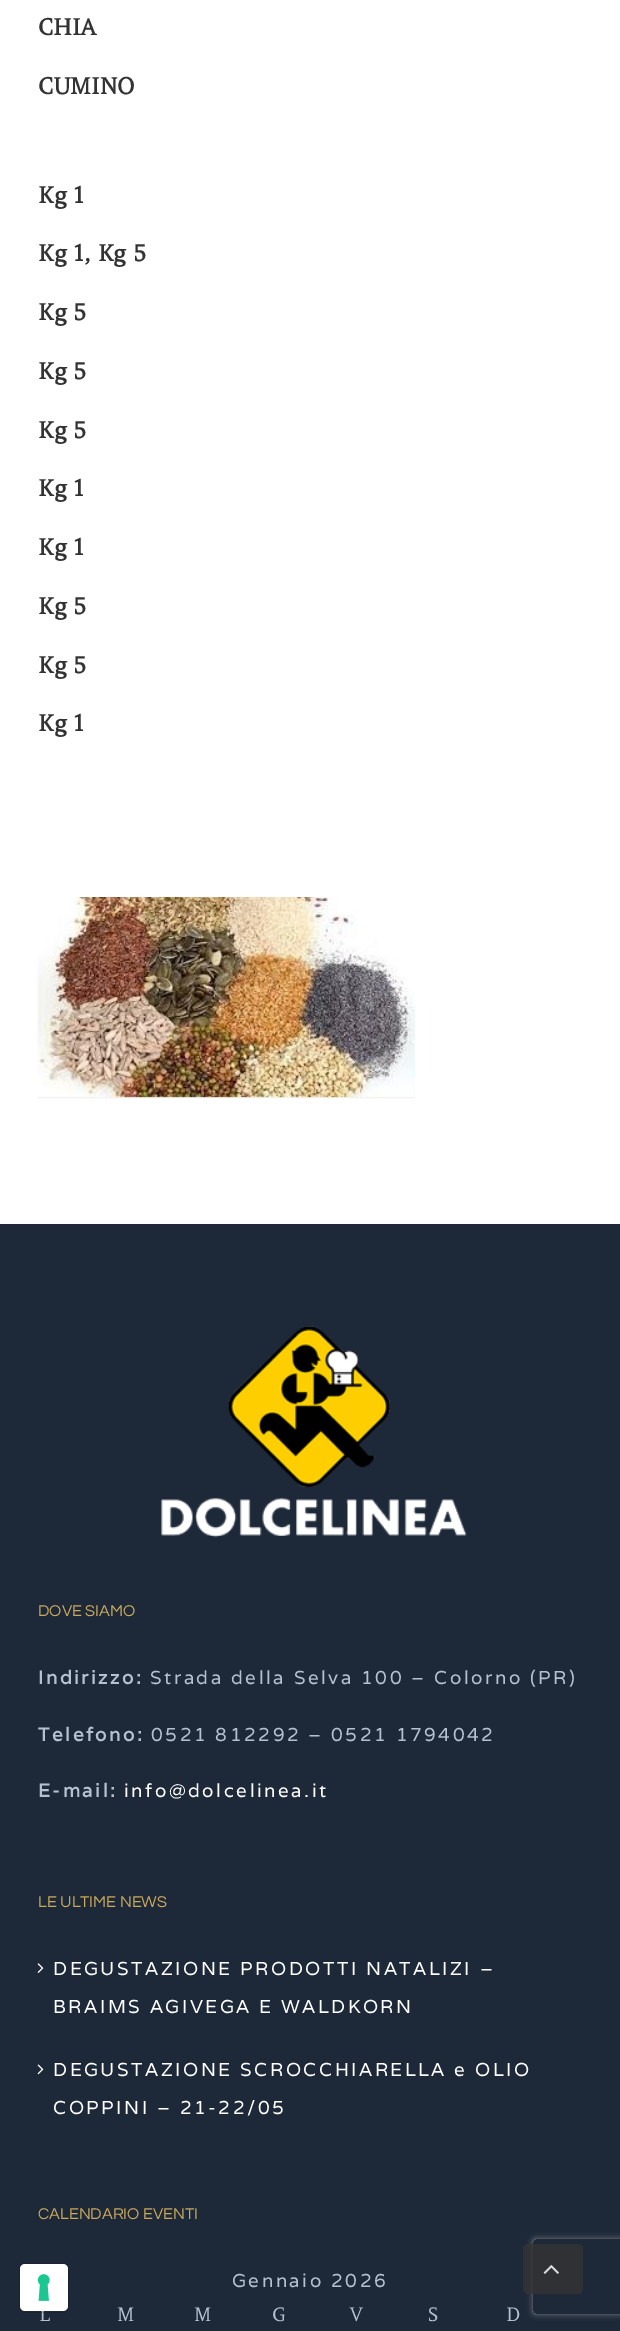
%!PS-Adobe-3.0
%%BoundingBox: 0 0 620 2331
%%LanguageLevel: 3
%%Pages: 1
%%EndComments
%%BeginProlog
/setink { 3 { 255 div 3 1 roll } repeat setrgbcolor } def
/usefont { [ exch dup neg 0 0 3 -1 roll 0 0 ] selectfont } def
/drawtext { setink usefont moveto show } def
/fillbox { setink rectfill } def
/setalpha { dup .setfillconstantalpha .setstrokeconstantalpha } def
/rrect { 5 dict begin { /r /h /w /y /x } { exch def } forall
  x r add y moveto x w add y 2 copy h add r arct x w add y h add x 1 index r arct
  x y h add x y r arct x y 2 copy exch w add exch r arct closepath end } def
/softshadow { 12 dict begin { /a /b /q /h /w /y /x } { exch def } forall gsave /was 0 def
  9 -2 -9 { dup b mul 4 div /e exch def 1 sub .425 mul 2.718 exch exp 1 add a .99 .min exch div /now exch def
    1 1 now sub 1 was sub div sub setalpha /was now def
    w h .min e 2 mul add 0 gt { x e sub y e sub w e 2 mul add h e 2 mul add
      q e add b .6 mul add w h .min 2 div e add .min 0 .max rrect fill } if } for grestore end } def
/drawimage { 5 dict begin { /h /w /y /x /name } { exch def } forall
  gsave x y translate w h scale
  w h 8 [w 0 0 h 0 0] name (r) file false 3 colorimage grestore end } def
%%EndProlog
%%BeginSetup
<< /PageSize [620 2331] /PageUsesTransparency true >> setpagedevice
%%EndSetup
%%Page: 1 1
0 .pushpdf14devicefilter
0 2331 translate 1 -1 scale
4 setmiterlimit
0 0 620 2331 255 255 255 fillbox
(CHIA) 38 35 /Amethysta-Bold 22.5 51 51 51 drawtext
(CUMINO) 38 94 /Amethysta-Bold 22.5 51 51 51 drawtext
(Kg 1) 38 203 /Amethysta-Bold 22.5 51 51 51 drawtext
(Kg 1, Kg 5) 38 261 /Amethysta-Bold 22.5 51 51 51 drawtext
(Kg 5) 38 320 /Amethysta-Bold 22.5 51 51 51 drawtext
(Kg 5) 38 379 /Amethysta-Bold 22.5 51 51 51 drawtext
(Kg 5) 38 438 /Amethysta-Bold 22.5 51 51 51 drawtext
(Kg 1) 38 496 /Amethysta-Bold 22.5 51 51 51 drawtext
(Kg 1) 38 555 /Amethysta-Bold 22.5 51 51 51 drawtext
(Kg 5) 38 614 /Amethysta-Bold 22.5 51 51 51 drawtext
(Kg 5) 38 673 /Amethysta-Bold 22.5 51 51 51 drawtext
(Kg 1) 38 731 /Amethysta-Bold 22.5 51 51 51 drawtext
(assets/img1.rgb) 37 897 378 202 drawimage
0 1224 620 1107 29 41 57 fillbox
(assets/img2.rgb) 161 1326 306 212 drawimage
(DOVE SIAMO) 38 1616 /Questrial-Regular 16.25 203 170 92 drawtext
/Varela-Bold 18.75 usefont
182 192 206 setink
38 1684 moveto 2.5 0 (Indirizzo:) ashow
/Varela-Regular 18.75 usefont
150 1684 moveto 2.5 0 (Strada della Selva 100 – Colorno \(PR\)) ashow
/Varela-Bold 18.75 usefont
38 1741 moveto 2.5 0 (Telefono:) ashow
/Varela-Regular 18.75 usefont
151 1741 moveto 2.5 0 (0521 812292 – 0521 1794042) ashow
/Varela-Bold 18.75 usefont
38 1797 moveto 2.5 0 (E-mail:) ashow
/Varela-Regular 18.75 usefont
255 255 255 setink
124 1797 moveto 2.5 0 (info@dolcelinea.it) ashow
(LE ULTIME NEWS) 38 1907 /Questrial-Regular 16.25 203 170 92 drawtext
(assets/img3.rgb) 37 1963 7 10 drawimage
/Varela-Regular 18.75 usefont
255 255 255 setink
53 1975 moveto 2.5 0 (DEGUSTAZIONE PRODOTTI NATALIZI –) ashow
53 2013 moveto 2.5 0 (BRAIMS AGIVEGA E WALDKORN) ashow
(assets/img4.rgb) 37 2064 7 11 drawimage
53 2076 moveto 2.5 0 (DEGUSTAZIONE SCROCCHIARELLA e OLIO) ashow
53 2114 moveto 2.5 0 (COPPINI – 21-22/05) ashow
(CALENDARIO EVENTI) 38 2219 /Questrial-Regular 16.25 203 170 92 drawtext
/Varela-Regular 18.75 usefont
182 192 206 setink
232 2287 moveto 2.5 0 (Gennaio 2026) ashow
(L) 39 2321 /Amethysta-Regular 18.75 182 192 206 drawtext
(M) 117 2321 /Amethysta-Regular 18.75 182 192 206 drawtext
(M) 194 2321 /Amethysta-Regular 18.75 182 192 206 drawtext
(G) 272 2321 /Amethysta-Regular 18.75 182 192 206 drawtext
(V) 350 2321 /Amethysta-Regular 18.75 182 192 206 drawtext
(S) 428 2321 /Amethysta-Regular 18.75 182 192 206 drawtext
(D) 506 2321 /Amethysta-Regular 18.75 182 192 206 drawtext
gsave
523 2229 moveto 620 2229 lineto 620 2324 lineto 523 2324 lineto closepath 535.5 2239 moveto 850.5 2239 lineto 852 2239 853 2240 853 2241.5 curveto 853 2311.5 lineto 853 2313 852 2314 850.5 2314 curveto 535.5 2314 lineto 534 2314 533 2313 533 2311.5 curveto 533 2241.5 lineto 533 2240 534 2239 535.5 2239 curveto closepath eoclip newpath
128 128 128 setink
533 2239 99 75 2.5 3 1 softshadow
grestore
0.15 setalpha
0 0 0 setink
19.5 2263.5 49 49 5.5 rrect stroke
1 setalpha
255 255 255 setink
20 2264 48 47 5 rrect fill
(assets/img5.rgb) 37 2274 13 27 drawimage
0.82 setalpha
51 51 51 setink
523 2244 60 50 5 rrect fill
1 setalpha
(assets/img6.rgb) 543 2265 16 9 drawimage
.poppdf14devicefilter showpage
%%EOF
